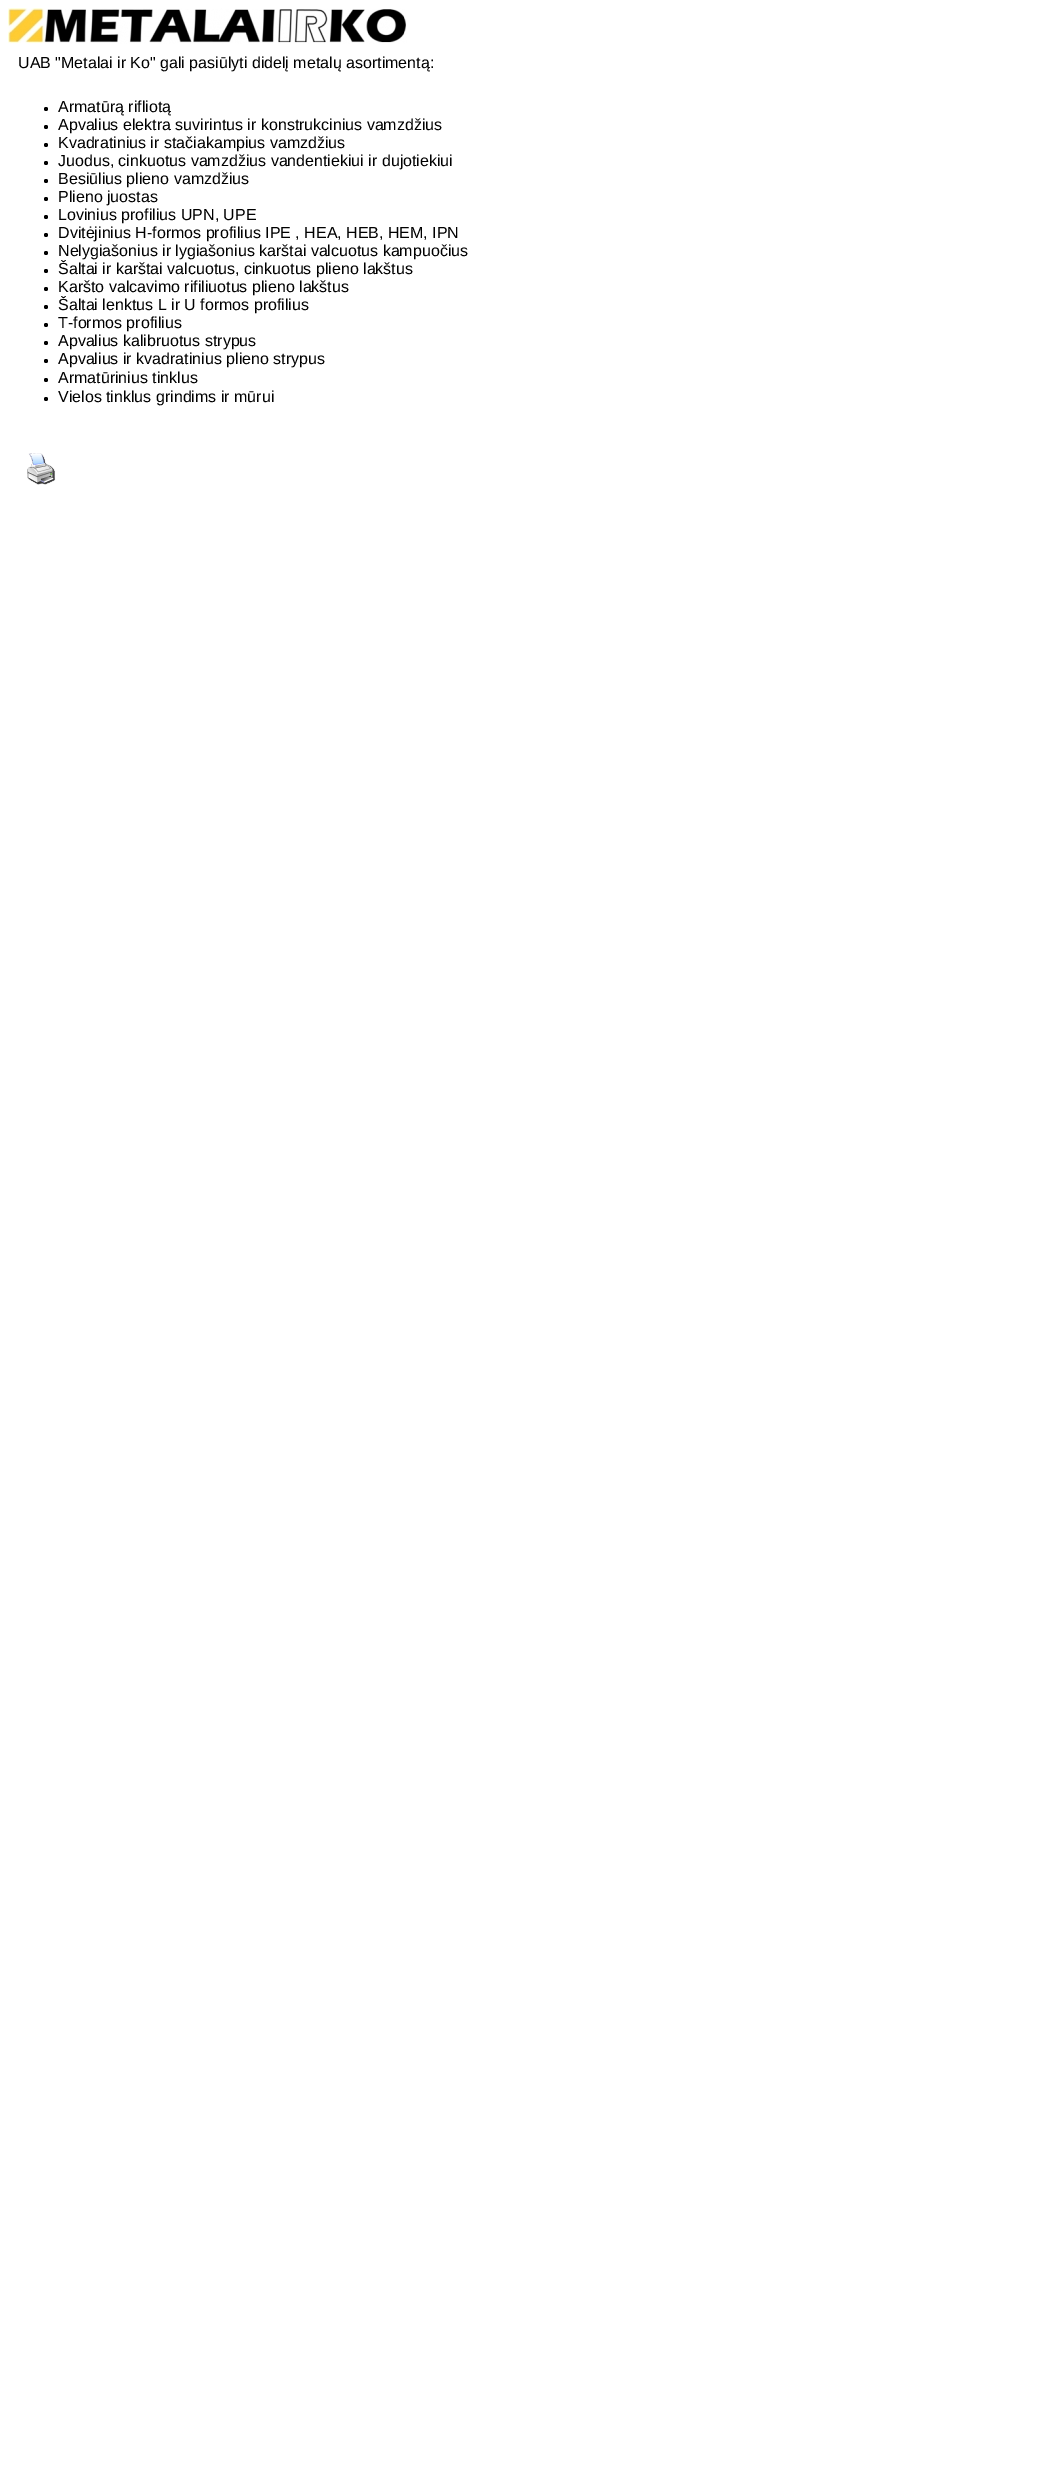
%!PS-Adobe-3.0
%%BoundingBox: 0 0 1055 2489
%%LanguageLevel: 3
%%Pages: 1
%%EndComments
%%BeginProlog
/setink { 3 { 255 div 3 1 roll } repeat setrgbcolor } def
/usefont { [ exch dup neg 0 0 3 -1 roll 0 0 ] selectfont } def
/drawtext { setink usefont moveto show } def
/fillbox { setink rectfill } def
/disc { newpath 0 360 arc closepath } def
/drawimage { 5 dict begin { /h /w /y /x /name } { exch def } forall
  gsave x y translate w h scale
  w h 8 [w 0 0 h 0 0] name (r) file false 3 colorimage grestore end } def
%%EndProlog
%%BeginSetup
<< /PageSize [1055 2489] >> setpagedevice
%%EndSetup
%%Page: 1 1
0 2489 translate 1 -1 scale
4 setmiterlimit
0 0 1055 2489 255 255 255 fillbox
(assets/img1.rgb) 8 8 399 36 drawimage
(UAB "Metalai ir Ko" gali pasiūlyti didelį metalų asortimentą:) 18 68 /LiberationSans-Regular 16 0 0 0 drawtext
46 109 2 disc fill
(Armatūrą rifliotą) 58 112 /LiberationSans-Regular 16 0 0 0 drawtext
46 127 2 disc fill
(Apvalius elektra suvirintus ir konstrukcinius vamzdžius) 58 130 /LiberationSans-Regular 16 0 0 0 drawtext
46 145 2 disc fill
(Kvadratinius ir stačiakampius vamzdžius) 58 148 /LiberationSans-Regular 16 0 0 0 drawtext
46 163 2 disc fill
(Juodus, cinkuotus vamzdžius vandentiekiui ir dujotiekiui) 58 166 /LiberationSans-Regular 16 0 0 0 drawtext
46 181 2 disc fill
(Besiūlius plieno vamzdžius) 58 184 /LiberationSans-Regular 16 0 0 0 drawtext
46 199 2 disc fill
(Plieno juostas) 58 202 /LiberationSans-Regular 16 0 0 0 drawtext
46 217 2 disc fill
(Lovinius profilius UPN, UPE) 58 220 /LiberationSans-Regular 16 0 0 0 drawtext
46 235 2 disc fill
(Dvitėjinius H-formos profilius IPE , HEA, HEB, HEM, IPN) 58 238 /LiberationSans-Regular 16 0 0 0 drawtext
46 253 2 disc fill
(Nelygiašonius ir lygiašonius karštai valcuotus kampuočius) 58 256 /LiberationSans-Regular 16 0 0 0 drawtext
46 271 2 disc fill
(Šaltai ir karštai valcuotus, cinkuotus plieno lakštus) 58 274 /LiberationSans-Regular 16 0 0 0 drawtext
46 289 2 disc fill
(Karšto valcavimo rifiliuotus plieno lakštus) 58 292 /LiberationSans-Regular 16 0 0 0 drawtext
46 307 2 disc fill
(Šaltai lenktus L ir U formos profilius) 58 310 /LiberationSans-Regular 16 0 0 0 drawtext
46 325 2 disc fill
(T-formos profilius) 58 328 /LiberationSans-Regular 16 0 0 0 drawtext
46 343 2 disc fill
(Apvalius kalibruotus strypus) 58 346 /LiberationSans-Regular 16 0 0 0 drawtext
46 361 2 disc fill
(Apvalius ir kvadratinius plieno strypus) 58 364 /LiberationSans-Regular 16 0 0 0 drawtext
46 380 2 disc fill
(Armatūrinius tinklus) 58 383 /LiberationSans-Regular 16 0 0 0 drawtext
46 399 2 disc fill
(Vielos tinklus grindims ir mūrui) 58 402 /LiberationSans-Regular 16 0 0 0 drawtext
(assets/img2.rgb) 18 446 44 43 drawimage
showpage
%%EOF
